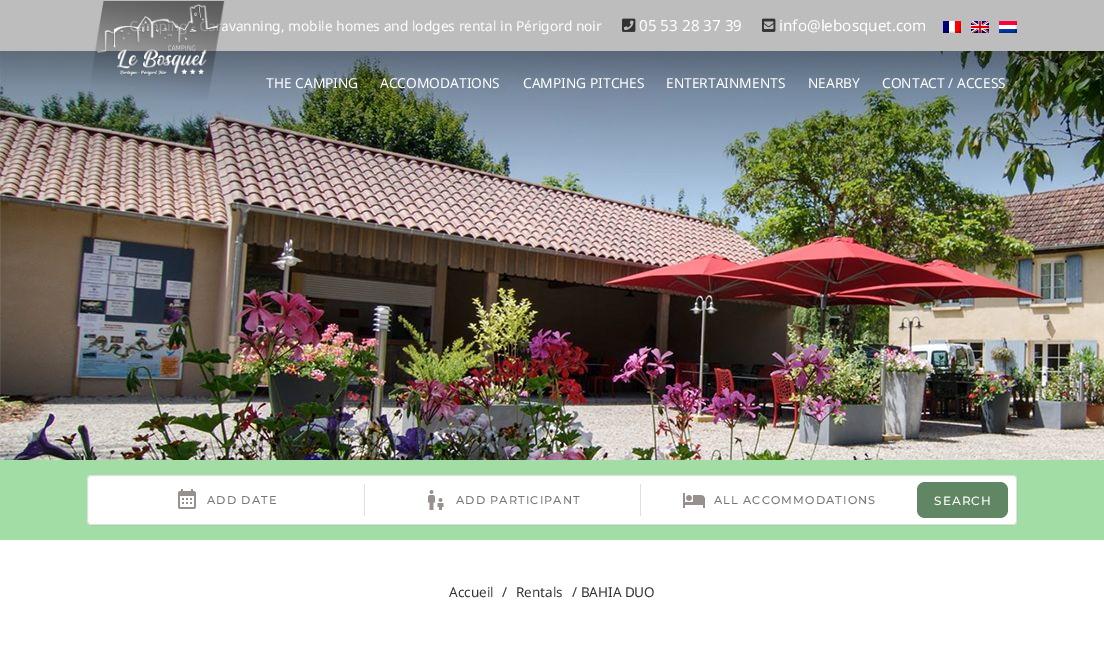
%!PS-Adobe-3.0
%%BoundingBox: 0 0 1104 651
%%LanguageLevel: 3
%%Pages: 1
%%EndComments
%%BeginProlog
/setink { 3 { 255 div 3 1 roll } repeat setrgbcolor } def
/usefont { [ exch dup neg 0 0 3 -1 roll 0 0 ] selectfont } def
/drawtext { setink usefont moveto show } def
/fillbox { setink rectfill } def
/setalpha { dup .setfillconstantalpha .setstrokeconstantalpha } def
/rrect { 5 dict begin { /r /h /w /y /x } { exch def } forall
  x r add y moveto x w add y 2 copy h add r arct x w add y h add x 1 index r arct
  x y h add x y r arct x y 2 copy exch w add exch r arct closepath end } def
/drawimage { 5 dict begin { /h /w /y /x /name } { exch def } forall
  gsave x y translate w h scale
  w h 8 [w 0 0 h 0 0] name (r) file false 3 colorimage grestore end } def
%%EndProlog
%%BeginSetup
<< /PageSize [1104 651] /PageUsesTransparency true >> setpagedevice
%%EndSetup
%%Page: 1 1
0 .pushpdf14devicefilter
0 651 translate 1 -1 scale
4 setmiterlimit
0 0 1104 651 255 255 255 fillbox
0 0 1104 51 189 189 189 fillbox
(Camping - Caravanning, mobile homes and lodges rental in Périgord noir) 129 31 /NotoSans-Regular 13.75 255 255 255 drawtext
(assets/img1.rgb) 622 18 14 14 drawimage
(05 53 28 37 39) 639 31 /NotoSans-Regular 15.25 255 255 255 drawtext
(assets/img2.rgb) 762 18 14 14 drawimage
(info@lebosquet.com) 779 31 /NotoSans-Regular 15.25 255 255 255 drawtext
(assets/img3.rgb) 943 21 18 12 drawimage
(assets/img4.rgb) 971 21 18 12 drawimage
(assets/img5.rgb) 999 21 18 12 drawimage
(assets/img7.rgb) 0 51 1104 409 drawimage
(assets/img6.rgb) 91 1 134 99 drawimage
(THE CAMPING) 266 88 /NotoSans-Regular 13.75 255 255 255 drawtext
(ACCOMODATIONS) 380 88 /NotoSans-Regular 13.75 255 255 255 drawtext
(CAMPING PITCHES) 523 88 /NotoSans-Regular 13.75 255 255 255 drawtext
(ENTERTAINMENTS) 666 88 /NotoSans-Regular 13.75 255 255 255 drawtext
(NEARBY) 808 88 /NotoSans-Regular 13.75 255 255 255 drawtext
(CONTACT / ACCESS) 882 88 /NotoSans-Regular 13.75 255 255 255 drawtext
0 460 1104 80 162 221 165 fillbox
255 255 255 setink
87 475 930 50 4 rrect fill
0.12 setalpha
0 0 0 setink
87.5 475.5 929 49 3.5 rrect stroke
1 setalpha
(assets/img8.rgb) 178 489 18 20 drawimage
/Montserrat-Medium 11.25 usefont
117 117 117 setink
207 504 moveto 1.1 0 (ADD DATE) ashow
364 484 1 32 224 224 224 fillbox
(assets/img9.rgb) 428 490 16 20 drawimage
117 117 117 setink
456 504 moveto 1.1 0 (ADD PARTICIPANT) ashow
640 484 1 32 224 224 224 fillbox
(assets/img10.rgb) 683 493 22 15 drawimage
117 117 117 setink
714 504 moveto 1.1 0 (ALL ACCOMMODATIONS) ashow
97 134 99 setink
917 482 91 36 8 rrect fill
/Montserrat-Medium 12 usefont
255 255 255 setink
934 505 moveto 1.1 0 (SEARCH) ashow
(Accueil) 449 597 /NotoSans-Regular 13.5 51 51 51 drawtext
(/) 502 597 /NotoSans-Regular 13.5 51 51 51 drawtext
(Rentals) 516 597 /NotoSans-Regular 13.5 51 51 51 drawtext
(/ BAHIA DUO) 572 597 /NotoSans-Regular 13.5 51 51 51 drawtext
.poppdf14devicefilter showpage
%%EOF
